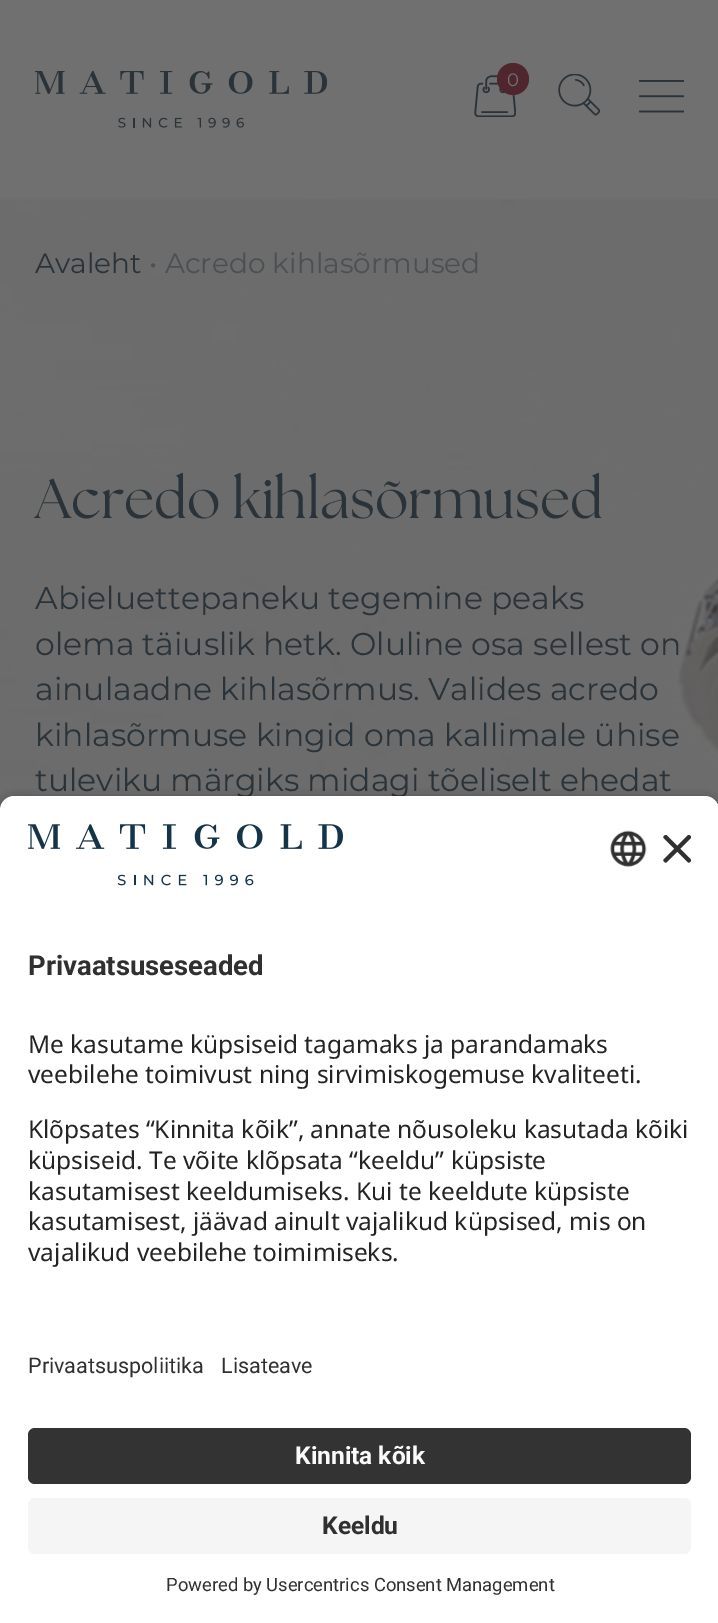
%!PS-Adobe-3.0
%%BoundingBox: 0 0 718 1623
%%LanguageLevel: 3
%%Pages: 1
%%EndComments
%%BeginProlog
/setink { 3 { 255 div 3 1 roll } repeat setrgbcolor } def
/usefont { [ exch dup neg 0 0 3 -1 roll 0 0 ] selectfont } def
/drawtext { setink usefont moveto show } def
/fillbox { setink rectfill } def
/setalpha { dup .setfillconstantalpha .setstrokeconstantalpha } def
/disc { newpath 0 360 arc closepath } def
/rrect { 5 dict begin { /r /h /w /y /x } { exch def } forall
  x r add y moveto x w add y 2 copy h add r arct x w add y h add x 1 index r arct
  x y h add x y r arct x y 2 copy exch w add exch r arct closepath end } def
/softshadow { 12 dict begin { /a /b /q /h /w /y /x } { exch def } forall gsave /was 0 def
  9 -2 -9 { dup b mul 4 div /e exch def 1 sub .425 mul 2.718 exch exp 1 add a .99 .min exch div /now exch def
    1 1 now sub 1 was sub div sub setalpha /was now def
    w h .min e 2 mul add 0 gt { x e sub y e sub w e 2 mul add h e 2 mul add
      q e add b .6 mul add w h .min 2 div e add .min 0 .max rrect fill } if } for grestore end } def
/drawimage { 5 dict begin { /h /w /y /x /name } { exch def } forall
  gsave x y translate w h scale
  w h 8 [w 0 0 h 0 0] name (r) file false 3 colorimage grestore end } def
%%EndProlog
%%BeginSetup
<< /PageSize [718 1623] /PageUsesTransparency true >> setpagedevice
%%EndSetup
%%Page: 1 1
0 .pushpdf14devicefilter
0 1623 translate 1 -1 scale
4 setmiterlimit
0 0 718 1623 112 112 112 fillbox
(assets/img1.rgb) 35 71 292 57 drawimage
(assets/img2.rgb) 474 75 42 42 drawimage
79 38 46 setink
513 79 16 disc fill
(0) 507 86 /Montserrat-Regular 18 112 112 112 drawtext
(assets/img3.rgb) 558 74 42 42 drawimage
(assets/img4.rgb) 639 80 45 33 drawimage
(assets/img5.rgb) 0 199 718 611 drawimage
(Avaleht) 35 273 /Montserrat-Regular 28 42 51 57 drawtext
(• Acredo kihlasõrmused) 149 273 /Montserrat-Regular 28 75 80 83 drawtext
(Acredo kihlasõrmused) 35 518 /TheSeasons-Regular 56 42 51 57 drawtext
(Abieluettepaneku tegemine peaks) 35 609 /Montserrat-Regular 31.5 42 51 57 drawtext
(olema täiuslik hetk. Oluline osa sellest on) 35 655 /Montserrat-Regular 31.5 42 51 57 drawtext
(ainulaadne kihlasõrmus. Valides acredo) 35 700 /Montserrat-Regular 31.5 42 51 57 drawtext
(kihlasõrmuse kingid oma kallimale ühise) 35 746 /Montserrat-Regular 31.5 42 51 57 drawtext
(tuleviku märgiks midagi tõeliselt ehedat) 35 791 /Montserrat-Regular 31.5 42 51 57 drawtext
0 0 0 setink
0 802 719 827 14 6 0.8 softshadow
255 255 255 setink
14 796 moveto 705 796 lineto 712.5 796 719 802.5 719 810 curveto 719 1327 lineto 0 1327 lineto 0 810 lineto 0 802.5 6.5 796 14 796 curveto closepath fill
(assets/img6.rgb) 28 824 315 62 drawimage
(assets/img7.rgb) 610 830 37 37 drawimage
(assets/img8.rgb) 663 835 28 28 drawimage
(Privaatsuseseaded) 28 975 /Roboto-Bold 27.5 48 48 48 drawtext
(Me kasutame küpsiseid tagamaks ja parandamaks) 28 1053 /NotoSans-Regular 24.5 36 36 36 drawtext
(veebilehe toimivust ning sirvimiskogemuse kvaliteeti.) 28 1083 /NotoSans-Regular 24.5 36 36 36 drawtext
(Klõpsates “Kinnita kõik”, annate nõusoleku kasutada kõiki) 28 1138 /NotoSans-Regular 24.5 36 36 36 drawtext
(küpsiseid. Te võite klõpsata “keeldu” küpsiste) 28 1169 /NotoSans-Regular 24.5 36 36 36 drawtext
(kasutamisest keeldumiseks. Kui te keeldute küpsiste) 28 1200 /NotoSans-Regular 24.5 36 36 36 drawtext
(kasutamisest, jäävad ainult vajalikud küpsised, mis on) 28 1230 /NotoSans-Regular 24.5 36 36 36 drawtext
(vajalikud veebilehe toimimiseks.) 28 1261 /NotoSans-Regular 24.5 36 36 36 drawtext
0 1327 718 296 255 255 255 fillbox
(Privaatsuspoliitika) 28 1373 /Roboto-Regular 21.5 48 48 48 drawtext
(Lisateave) 221 1373 /Roboto-Regular 21.5 48 48 48 drawtext
51 51 51 setink
28 1428 663 56 7 rrect fill
(Kinnita kõik) 295 1464 /Roboto-Bold 24.5 250 250 250 drawtext
245 245 245 setink
28 1498 663 56 7 rrect fill
(Keeldu) 322 1534 /Roboto-Bold 24.5 48 48 48 drawtext
(Powered by Usercentrics Consent Management) 166 1591 /Roboto-Regular 18.4 48 48 48 drawtext
.poppdf14devicefilter showpage
%%EOF
